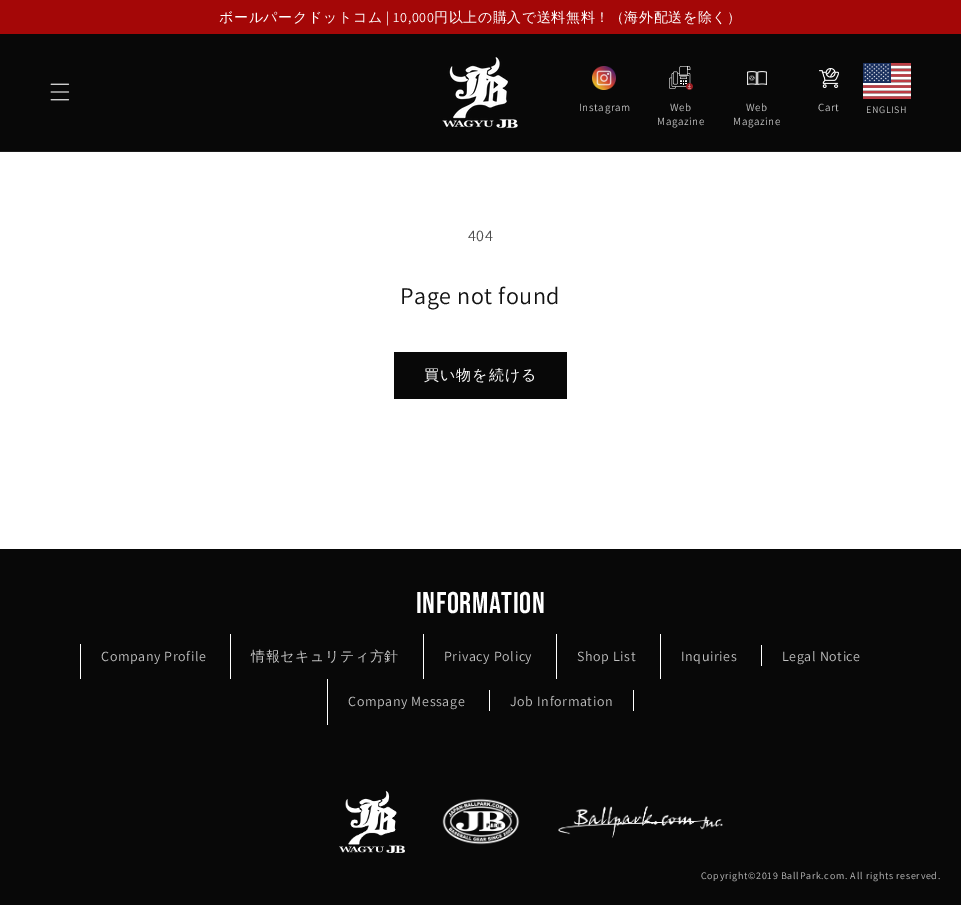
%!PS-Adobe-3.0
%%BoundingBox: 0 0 961 905
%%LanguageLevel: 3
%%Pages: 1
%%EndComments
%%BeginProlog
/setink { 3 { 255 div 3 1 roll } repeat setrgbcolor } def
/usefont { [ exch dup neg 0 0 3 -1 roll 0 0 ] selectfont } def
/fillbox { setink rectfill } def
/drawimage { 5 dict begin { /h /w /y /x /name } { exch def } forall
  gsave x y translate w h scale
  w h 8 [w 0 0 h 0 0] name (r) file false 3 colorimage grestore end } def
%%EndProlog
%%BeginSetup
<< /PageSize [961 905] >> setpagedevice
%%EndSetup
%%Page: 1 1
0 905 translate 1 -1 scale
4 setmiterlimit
0 0 961 905 255 255 255 fillbox
0 0 961 34 164 7 7 fillbox
/WenQuanYiZenHei-Medium 14 usefont
255 255 255 setink
219 22 moveto 0.6 0 (ボールパークドットコム) ashow
/Assistant-Regular 14 usefont
386 22 moveto 0.6 0 (| 10,000) ashow
/WenQuanYiZenHei-Medium 14 usefont
434 22 moveto 0.6 0 (円以上の購入で送料無料！（海外配送を除く）) ashow
0 34 961 117 8 8 8 fillbox
0 151 961 1 28 28 28 fillbox
(assets/img1.rgb) 50 83 20 18 drawimage
(assets/img2.rgb) 442 57 76 72 drawimage
(assets/img3.rgb) 592 66 24 24 drawimage
/Assistant-Regular 11 usefont
193 193 193 setink
579 111 moveto 0.6 0 (Instagram) ashow
(assets/img4.rgb) 669 66 24 24 drawimage
670 111 moveto 0.6 0 (Web) ashow
657 125 moveto 0.6 0 (Magazine) ashow
(assets/img5.rgb) 747 71 20 14 drawimage
746 111 moveto 0.6 0 (Web) ashow
733 125 moveto 0.6 0 (Magazine) ashow
(assets/img6.rgb) 819 68 20 20 drawimage
818 111 moveto 0.6 0 (Cart) ashow
(assets/img7.rgb) 863 63 48 36 drawimage
/Assistant-Regular 10 usefont
866 113 moveto 0.6 0 (ENGLISH) ashow
/Assistant-Regular 16 usefont
77 77 77 setink
468 241 moveto 0.6 0 (404) ashow
/Assistant-Regular 24 usefont
18 18 18 setink
400 304 moveto 0.6 0 (Page not found) ashow
394 352 173 47 8 8 8 fillbox
/WenQuanYiZenHei-Medium 15 usefont
255 255 255 setink
424 380 moveto 1 0 (買い物を続ける) ashow
0 549 961 356 8 8 8 fillbox
/BebasNeue-Regular 30 usefont
255 255 255 setink
416 613 moveto 0.6 0 (INFORMATION) ashow
80 644 1 35 255 255 255 fillbox
/Assistant-Regular 14 usefont
193 193 193 setink
101 661 moveto 0.6 0 (Company Profile) ashow
230 634 1 45 255 255 255 fillbox
/WenQuanYiZenHei-Medium 14 usefont
193 193 193 setink
251 661 moveto 0.6 0 (情報セキュリティ方針) ashow
423 634 1 45 255 255 255 fillbox
/Assistant-Regular 14 usefont
193 193 193 setink
444 661 moveto 0.6 0 (Privacy Policy) ashow
556 634 1 45 255 255 255 fillbox
193 193 193 setink
577 661 moveto 0.6 0 (Shop List) ashow
660 634 1 45 255 255 255 fillbox
193 193 193 setink
681 661 moveto 0.6 0 (Inquiries) ashow
761 645 1 21 255 255 255 fillbox
193 193 193 setink
782 661 moveto 0.6 0 (Legal Notice) ashow
327 679 1 46 255 255 255 fillbox
193 193 193 setink
348 706 moveto 0.6 0 (Company Message) ashow
633 690 1 21 255 255 255 fillbox
489 690 1 21 255 255 255 fillbox
193 193 193 setink
510 706 moveto 0.6 0 (Job Information) ashow
(assets/img8.rgb) 339 791 66 62 drawimage
(assets/img9.rgb) 442 798 78 47 drawimage
(assets/img10.rgb) 558 806 165 32 drawimage
/Assistant-Regular 10 usefont
701 879 moveto 0.7 0 (Copyright©2019 BallPark.com. All rights reserved.) ashow
showpage
%%EOF
